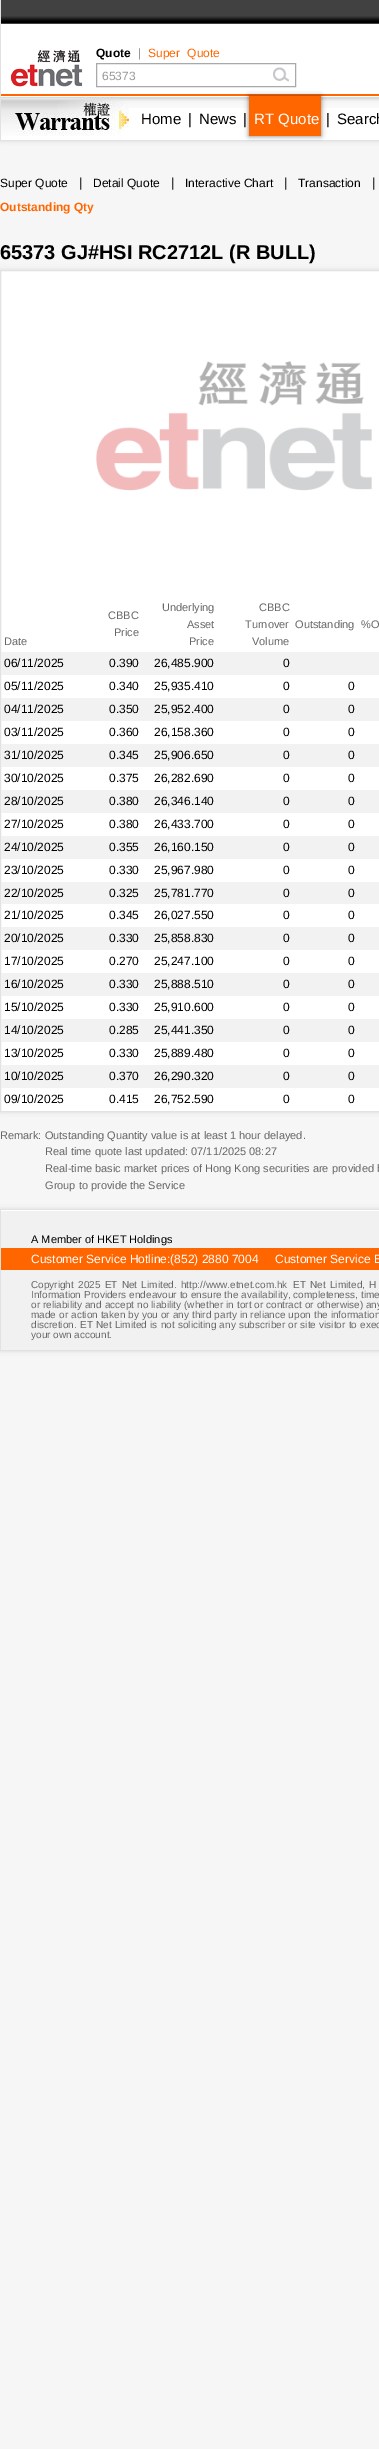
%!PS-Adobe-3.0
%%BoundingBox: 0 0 379 2449
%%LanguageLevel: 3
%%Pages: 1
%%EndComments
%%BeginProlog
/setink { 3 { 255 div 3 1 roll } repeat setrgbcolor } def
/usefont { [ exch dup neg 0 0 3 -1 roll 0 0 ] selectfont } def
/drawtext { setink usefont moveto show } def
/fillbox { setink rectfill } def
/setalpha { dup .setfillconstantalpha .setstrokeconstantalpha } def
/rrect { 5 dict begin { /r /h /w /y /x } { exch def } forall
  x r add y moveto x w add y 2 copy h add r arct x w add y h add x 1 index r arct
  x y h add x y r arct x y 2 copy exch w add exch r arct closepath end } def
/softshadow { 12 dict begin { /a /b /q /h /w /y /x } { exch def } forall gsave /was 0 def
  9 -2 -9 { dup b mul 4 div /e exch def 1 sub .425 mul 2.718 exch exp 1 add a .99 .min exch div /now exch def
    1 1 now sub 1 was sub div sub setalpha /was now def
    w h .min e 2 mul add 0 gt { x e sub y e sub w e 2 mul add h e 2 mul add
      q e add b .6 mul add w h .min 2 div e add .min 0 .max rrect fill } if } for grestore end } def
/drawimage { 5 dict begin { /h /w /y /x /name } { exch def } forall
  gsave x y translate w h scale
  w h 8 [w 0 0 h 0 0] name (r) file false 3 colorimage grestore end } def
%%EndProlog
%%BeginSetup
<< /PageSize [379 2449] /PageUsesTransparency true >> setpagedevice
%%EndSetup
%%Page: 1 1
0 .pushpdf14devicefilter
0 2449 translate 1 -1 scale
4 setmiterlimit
0 0 379 2449 246 246 246 fillbox
0 0 0 setink
0 0 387 141 0 2.5 0.1 softshadow
1 24 378 116 255 255 255 fillbox
0 140 379 1 226 226 226 fillbox
0 0 1 141 226 226 226 fillbox
(assets/img1.rgb) 1 0 378 24 drawimage
(assets/img2.rgb) 11 50 72 37 drawimage
(Quote) 96 57 /LiberationSans-Bold 12 0 0 0 drawtext
(|) 138 57 /LiberationSans-Regular 12 153 153 153 drawtext
255 102 0 setink
148 57 moveto 4 0 32 (Super Quote) widthshow
169 169 169 setink
96.5 63.5 199 23 rectstroke
(65373) 102 80 /LiberationSans-Regular 12 153 153 153 drawtext
(assets/img3.rgb) 273 67 16 15 drawimage
1 94 378 2 255 102 0 fillbox
(assets/img4.rgb) 129 97 250 11 drawimage
(assets/img5.rgb) 1 96 128 40 drawimage
(Home) 141 124 /LiberationSans-Regular 15 0 0 0 drawtext
(|) 188 124 /LiberationSans-Regular 15 0 0 0 drawtext
(News) 199 124 /LiberationSans-Regular 15 0 0 0 drawtext
(|) 243 124 /LiberationSans-Regular 15 0 0 0 drawtext
249 96 72 40 0 2.5 0.5 softshadow
249 96 72 40 255 102 0 fillbox
(RT Quote) 254 124 /LiberationSans-Regular 15 255 255 255 drawtext
(|) 326 124 /LiberationSans-Regular 15 0 0 0 drawtext
(Search) 337 124 /LiberationSans-Regular 15 0 0 0 drawtext
(Super Quote) 0 187 /LiberationSans-Regular 12 0 0 0 drawtext
(|) 79 187 /LiberationSans-Regular 13 0 0 0 drawtext
(Detail Quote) 93 187 /LiberationSans-Regular 12 0 0 0 drawtext
(|) 171 187 /LiberationSans-Regular 13 0 0 0 drawtext
(Interactive Chart) 185 187 /LiberationSans-Regular 12 0 0 0 drawtext
(|) 284 187 /LiberationSans-Regular 13 0 0 0 drawtext
(Transaction) 298 187 /LiberationSans-Regular 12 0 0 0 drawtext
(|) 372 187 /LiberationSans-Regular 13 0 0 0 drawtext
(Outstanding Qty) 0 211 /LiberationSans-Bold 12 255 102 0 drawtext
(65373 GJ#HSI RC2712L \(R BULL\)) 0 259 /LiberationSans-Bold 20 0 0 0 drawtext
0 270 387 842 0 2.5 0.1 softshadow
255 255 255 setink
0.5 270.5 moveto 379.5 270.5 lineto 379.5 1111.5 lineto 0.5 1111.5 lineto closepath gsave fill grestore
226 226 226 setink
stroke
(assets/img6.rgb) 96 361 276 130 drawimage
(CBBC) 108 619 /LiberationSans-Regular 11 102 102 102 drawtext
(Price) 114 636 /LiberationSans-Regular 11 102 102 102 drawtext
(Underlying) 162 611 /LiberationSans-Regular 11 102 102 102 drawtext
(Asset) 187 628 /LiberationSans-Regular 11 102 102 102 drawtext
(Price) 189 645 /LiberationSans-Regular 11 102 102 102 drawtext
(CBBC) 259 611 /LiberationSans-Regular 11 102 102 102 drawtext
(Turnover) 245 628 /LiberationSans-Regular 11 102 102 102 drawtext
(Volume) 252 645 /LiberationSans-Regular 11 102 102 102 drawtext
(Outstanding) 295 628 /LiberationSans-Regular 11 102 102 102 drawtext
(%O) 361 628 /LiberationSans-Regular 11 102 102 102 drawtext
(Date) 4 645 /LiberationSans-Regular 11 102 102 102 drawtext
1 652 378 23 242 242 242 fillbox
(06/11/2025) 4 667 /LiberationSans-Regular 12 0 0 0 drawtext
(0.390) 109 667 /LiberationSans-Regular 12 0 0 0 drawtext
(26,485.900) 154 667 /LiberationSans-Regular 12 0 0 0 drawtext
(0) 283 667 /LiberationSans-Regular 12 0 0 0 drawtext
(05/11/2025) 4 690 /LiberationSans-Regular 12 0 0 0 drawtext
(0.340) 109 690 /LiberationSans-Regular 12 0 0 0 drawtext
(25,935.410) 154 690 /LiberationSans-Regular 12 0 0 0 drawtext
(0) 283 690 /LiberationSans-Regular 12 0 0 0 drawtext
(0) 348 690 /LiberationSans-Regular 12 0 0 0 drawtext
1 698 378 23 242 242 242 fillbox
(04/11/2025) 4 713 /LiberationSans-Regular 12 0 0 0 drawtext
(0.350) 109 713 /LiberationSans-Regular 12 0 0 0 drawtext
(25,952.400) 154 713 /LiberationSans-Regular 12 0 0 0 drawtext
(0) 283 713 /LiberationSans-Regular 12 0 0 0 drawtext
(0) 348 713 /LiberationSans-Regular 12 0 0 0 drawtext
(03/11/2025) 4 736 /LiberationSans-Regular 12 0 0 0 drawtext
(0.360) 109 736 /LiberationSans-Regular 12 0 0 0 drawtext
(26,158.360) 154 736 /LiberationSans-Regular 12 0 0 0 drawtext
(0) 283 736 /LiberationSans-Regular 12 0 0 0 drawtext
(0) 348 736 /LiberationSans-Regular 12 0 0 0 drawtext
1 744 378 23 242 242 242 fillbox
(31/10/2025) 4 759 /LiberationSans-Regular 12 0 0 0 drawtext
(0.345) 109 759 /LiberationSans-Regular 12 0 0 0 drawtext
(25,906.650) 154 759 /LiberationSans-Regular 12 0 0 0 drawtext
(0) 283 759 /LiberationSans-Regular 12 0 0 0 drawtext
(0) 348 759 /LiberationSans-Regular 12 0 0 0 drawtext
(30/10/2025) 4 782 /LiberationSans-Regular 12 0 0 0 drawtext
(0.375) 109 782 /LiberationSans-Regular 12 0 0 0 drawtext
(26,282.690) 154 782 /LiberationSans-Regular 12 0 0 0 drawtext
(0) 283 782 /LiberationSans-Regular 12 0 0 0 drawtext
(0) 348 782 /LiberationSans-Regular 12 0 0 0 drawtext
1 790 378 23 242 242 242 fillbox
(28/10/2025) 4 805 /LiberationSans-Regular 12 0 0 0 drawtext
(0.380) 109 805 /LiberationSans-Regular 12 0 0 0 drawtext
(26,346.140) 154 805 /LiberationSans-Regular 12 0 0 0 drawtext
(0) 283 805 /LiberationSans-Regular 12 0 0 0 drawtext
(0) 348 805 /LiberationSans-Regular 12 0 0 0 drawtext
(27/10/2025) 4 828 /LiberationSans-Regular 12 0 0 0 drawtext
(0.380) 109 828 /LiberationSans-Regular 12 0 0 0 drawtext
(26,433.700) 154 828 /LiberationSans-Regular 12 0 0 0 drawtext
(0) 283 828 /LiberationSans-Regular 12 0 0 0 drawtext
(0) 348 828 /LiberationSans-Regular 12 0 0 0 drawtext
1 836 378 23 242 242 242 fillbox
(24/10/2025) 4 851 /LiberationSans-Regular 12 0 0 0 drawtext
(0.355) 109 851 /LiberationSans-Regular 12 0 0 0 drawtext
(26,160.150) 154 851 /LiberationSans-Regular 12 0 0 0 drawtext
(0) 283 851 /LiberationSans-Regular 12 0 0 0 drawtext
(0) 348 851 /LiberationSans-Regular 12 0 0 0 drawtext
(23/10/2025) 4 874 /LiberationSans-Regular 12 0 0 0 drawtext
(0.330) 109 874 /LiberationSans-Regular 12 0 0 0 drawtext
(25,967.980) 154 874 /LiberationSans-Regular 12 0 0 0 drawtext
(0) 283 874 /LiberationSans-Regular 12 0 0 0 drawtext
(0) 348 874 /LiberationSans-Regular 12 0 0 0 drawtext
1 882 378 22 242 242 242 fillbox
(22/10/2025) 4 897 /LiberationSans-Regular 12 0 0 0 drawtext
(0.325) 109 897 /LiberationSans-Regular 12 0 0 0 drawtext
(25,781.770) 154 897 /LiberationSans-Regular 12 0 0 0 drawtext
(0) 283 897 /LiberationSans-Regular 12 0 0 0 drawtext
(0) 348 897 /LiberationSans-Regular 12 0 0 0 drawtext
(21/10/2025) 4 919 /LiberationSans-Regular 12 0 0 0 drawtext
(0.345) 109 919 /LiberationSans-Regular 12 0 0 0 drawtext
(26,027.550) 154 919 /LiberationSans-Regular 12 0 0 0 drawtext
(0) 283 919 /LiberationSans-Regular 12 0 0 0 drawtext
(0) 348 919 /LiberationSans-Regular 12 0 0 0 drawtext
1 927 378 23 242 242 242 fillbox
(20/10/2025) 4 942 /LiberationSans-Regular 12 0 0 0 drawtext
(0.330) 109 942 /LiberationSans-Regular 12 0 0 0 drawtext
(25,858.830) 154 942 /LiberationSans-Regular 12 0 0 0 drawtext
(0) 283 942 /LiberationSans-Regular 12 0 0 0 drawtext
(0) 348 942 /LiberationSans-Regular 12 0 0 0 drawtext
(17/10/2025) 4 965 /LiberationSans-Regular 12 0 0 0 drawtext
(0.270) 109 965 /LiberationSans-Regular 12 0 0 0 drawtext
(25,247.100) 154 965 /LiberationSans-Regular 12 0 0 0 drawtext
(0) 283 965 /LiberationSans-Regular 12 0 0 0 drawtext
(0) 348 965 /LiberationSans-Regular 12 0 0 0 drawtext
1 973 378 23 242 242 242 fillbox
(16/10/2025) 4 988 /LiberationSans-Regular 12 0 0 0 drawtext
(0.330) 109 988 /LiberationSans-Regular 12 0 0 0 drawtext
(25,888.510) 154 988 /LiberationSans-Regular 12 0 0 0 drawtext
(0) 283 988 /LiberationSans-Regular 12 0 0 0 drawtext
(0) 348 988 /LiberationSans-Regular 12 0 0 0 drawtext
(15/10/2025) 4 1011 /LiberationSans-Regular 12 0 0 0 drawtext
(0.330) 109 1011 /LiberationSans-Regular 12 0 0 0 drawtext
(25,910.600) 154 1011 /LiberationSans-Regular 12 0 0 0 drawtext
(0) 283 1011 /LiberationSans-Regular 12 0 0 0 drawtext
(0) 348 1011 /LiberationSans-Regular 12 0 0 0 drawtext
1 1019 378 23 242 242 242 fillbox
(14/10/2025) 4 1034 /LiberationSans-Regular 12 0 0 0 drawtext
(0.285) 109 1034 /LiberationSans-Regular 12 0 0 0 drawtext
(25,441.350) 154 1034 /LiberationSans-Regular 12 0 0 0 drawtext
(0) 283 1034 /LiberationSans-Regular 12 0 0 0 drawtext
(0) 348 1034 /LiberationSans-Regular 12 0 0 0 drawtext
(13/10/2025) 4 1057 /LiberationSans-Regular 12 0 0 0 drawtext
(0.330) 109 1057 /LiberationSans-Regular 12 0 0 0 drawtext
(25,889.480) 154 1057 /LiberationSans-Regular 12 0 0 0 drawtext
(0) 283 1057 /LiberationSans-Regular 12 0 0 0 drawtext
(0) 348 1057 /LiberationSans-Regular 12 0 0 0 drawtext
1 1065 378 23 242 242 242 fillbox
(10/10/2025) 4 1080 /LiberationSans-Regular 12 0 0 0 drawtext
(0.370) 109 1080 /LiberationSans-Regular 12 0 0 0 drawtext
(26,290.320) 154 1080 /LiberationSans-Regular 12 0 0 0 drawtext
(0) 283 1080 /LiberationSans-Regular 12 0 0 0 drawtext
(0) 348 1080 /LiberationSans-Regular 12 0 0 0 drawtext
(09/10/2025) 4 1103 /LiberationSans-Regular 12 0 0 0 drawtext
(0.415) 109 1103 /LiberationSans-Regular 12 0 0 0 drawtext
(26,752.590) 154 1103 /LiberationSans-Regular 12 0 0 0 drawtext
(0) 283 1103 /LiberationSans-Regular 12 0 0 0 drawtext
(0) 348 1103 /LiberationSans-Regular 12 0 0 0 drawtext
(Remark: Outstanding Quantity value is at least 1 hour delayed.) 0 1139 /LiberationSans-Regular 11 102 102 102 drawtext
(Real time quote last updated: 07/11/2025 08:27) 45 1155 /LiberationSans-Regular 11 102 102 102 drawtext
(Real-time basic market prices of Hong Kong securities are provided b) 45 1172 /LiberationSans-Regular 11 102 102 102 drawtext
(Group to provide the Service) 45 1189 /LiberationSans-Regular 11 102 102 102 drawtext
0 0 0 setink
0 1209 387 142 0 2.5 0.1 softshadow
226 226 226 setink
0.5 1209.5 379 141 rectstroke
1 1211 378 139 242 241 241 fillbox
1 1210 378 1 255 255 255 fillbox
(A Member of HKET Holdings) 31 1243 /LiberationSans-Regular 11 0 0 0 drawtext
1 1248 378 22 255 102 0 fillbox
(Customer Service Hotline:\(852\) 2880 7004     Customer Service E) 31 1263 /LiberationSans-Regular 12 255 255 255 drawtext
/LiberationSans-Regular 10 usefont
102 102 102 setink
31 1288 moveto 1.5 0 32 (Copyright 2025 ET Net Limited. http://www.etnet.com.hk) widthshow
293 1288 moveto 1.5 0 32 (ET Net Limited, H) widthshow
31 1298 moveto 0.25 0 32 (Information Providers endeavour to ensure the availability, completeness, time) widthshow
31 1308 moveto 0.25 0 32 (or reliability and accept no liability \(whether in tort or contract or otherwise\) any) widthshow
31 1318 moveto 0.25 0 32 (made or action taken by you or any third party in reliance upon the information) widthshow
31 1328 moveto 0.5 0 32 (discretion. ET Net Limited is not soliciting any subscriber or site visitor to exec) widthshow
(your own account.) 31 1338 /LiberationSans-Regular 10 102 102 102 drawtext
.poppdf14devicefilter showpage
%%EOF
